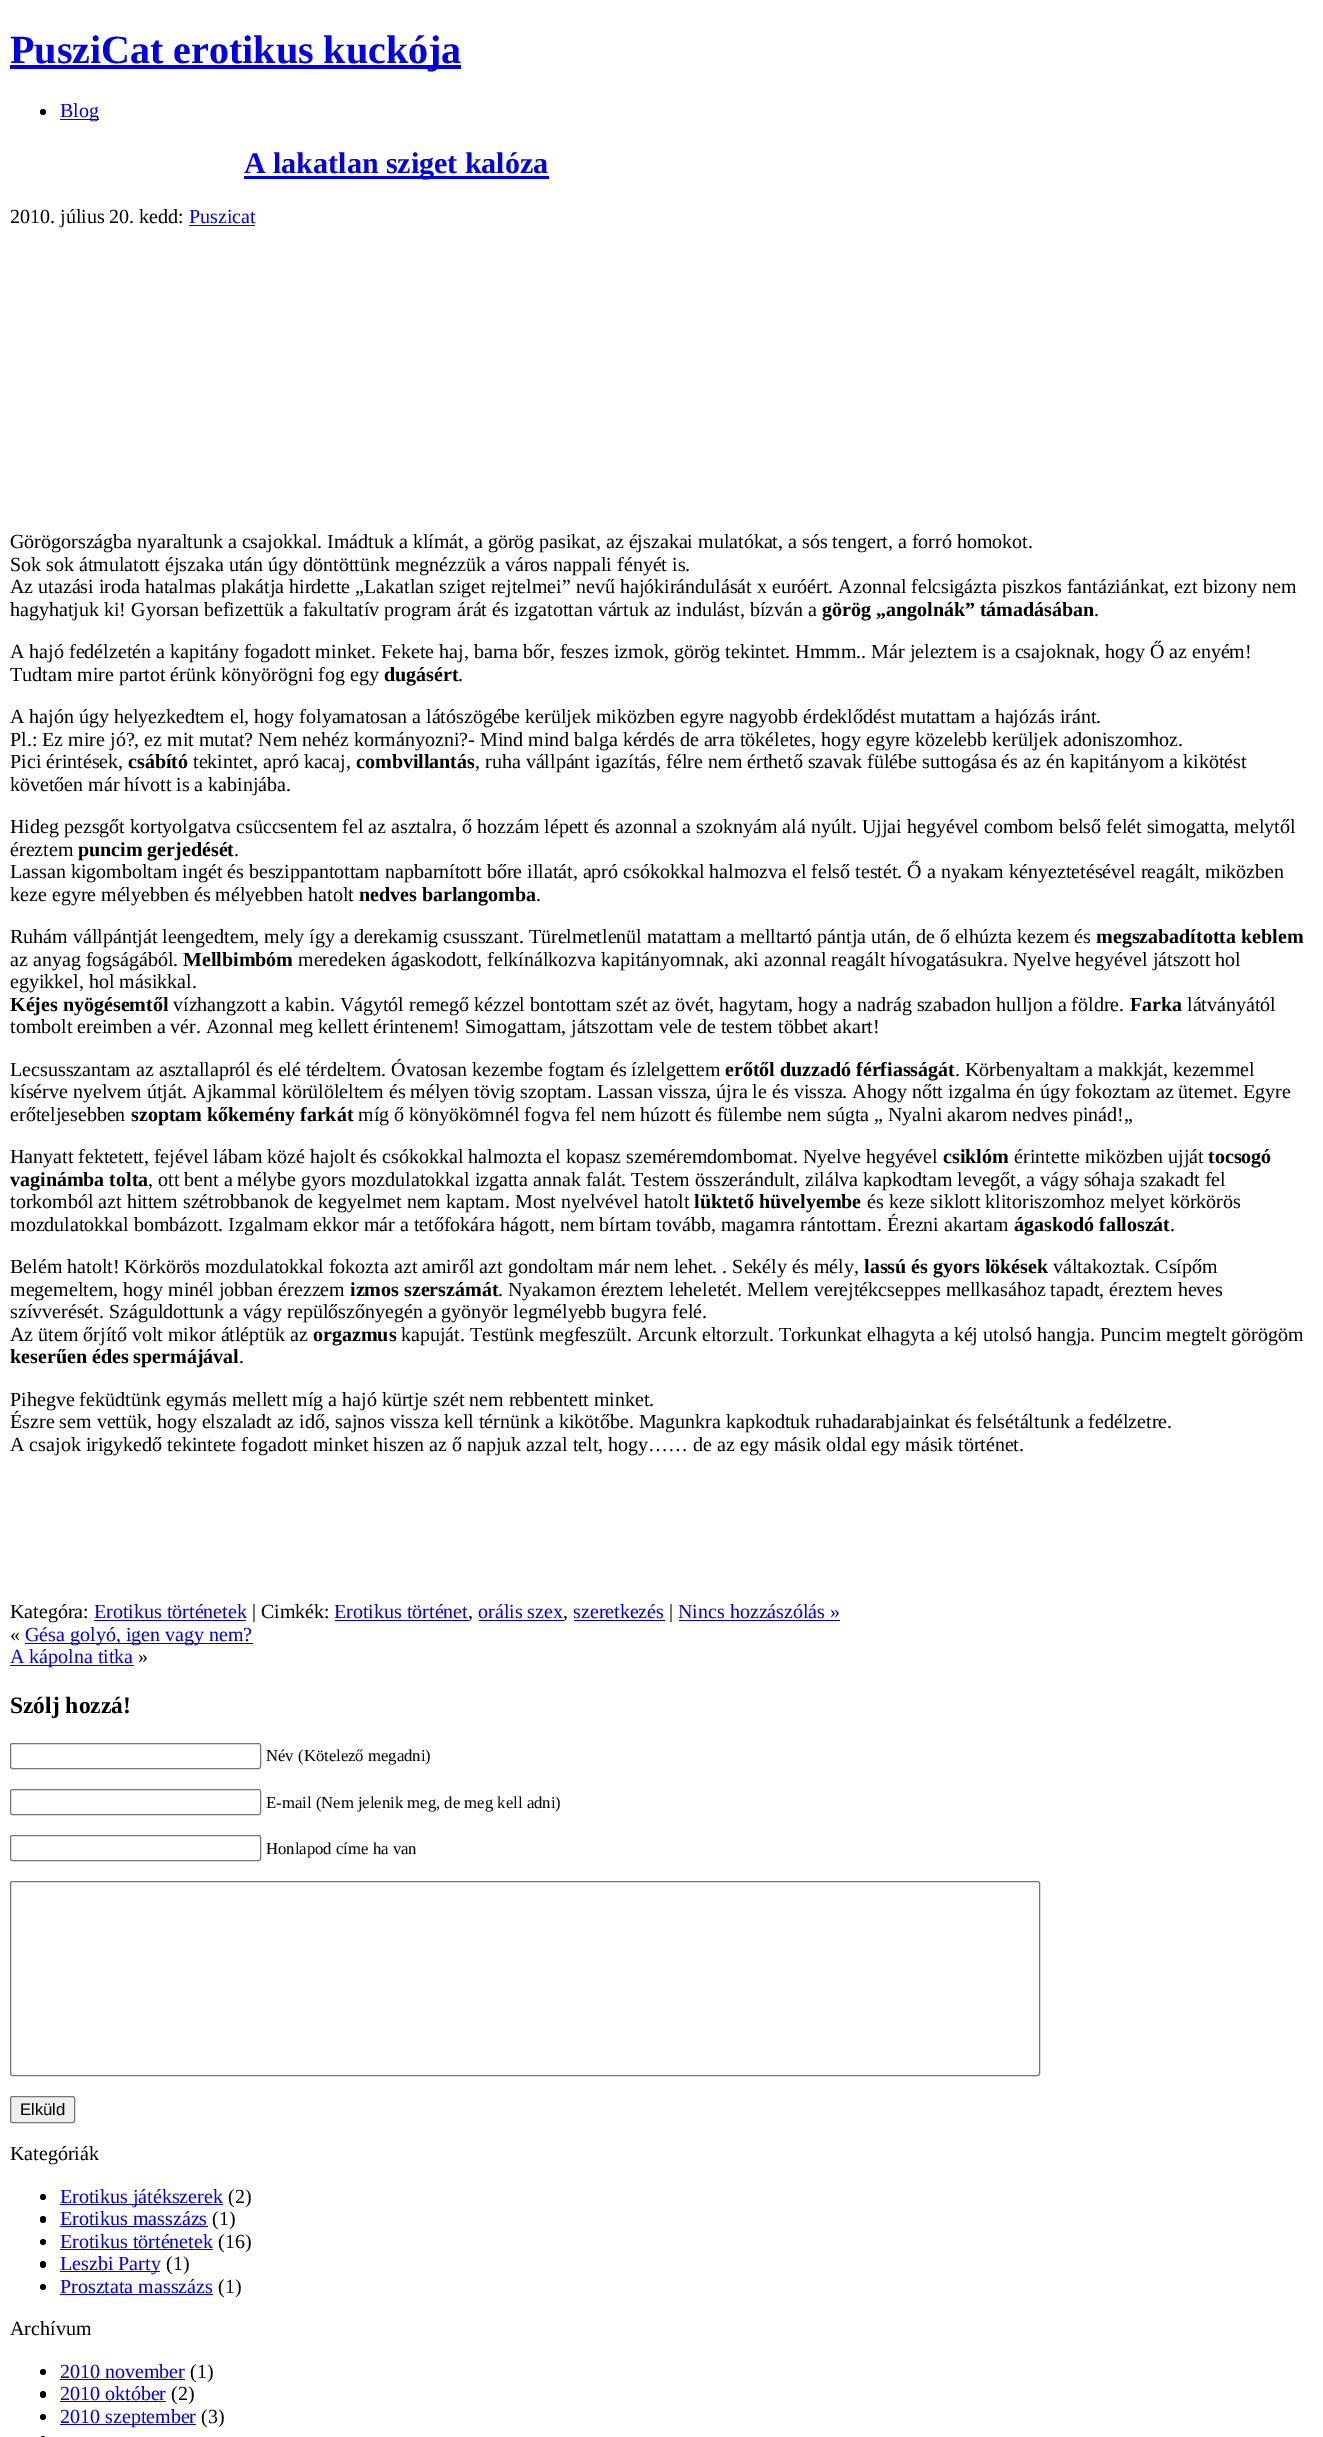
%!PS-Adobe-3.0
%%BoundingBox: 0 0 1323 2437
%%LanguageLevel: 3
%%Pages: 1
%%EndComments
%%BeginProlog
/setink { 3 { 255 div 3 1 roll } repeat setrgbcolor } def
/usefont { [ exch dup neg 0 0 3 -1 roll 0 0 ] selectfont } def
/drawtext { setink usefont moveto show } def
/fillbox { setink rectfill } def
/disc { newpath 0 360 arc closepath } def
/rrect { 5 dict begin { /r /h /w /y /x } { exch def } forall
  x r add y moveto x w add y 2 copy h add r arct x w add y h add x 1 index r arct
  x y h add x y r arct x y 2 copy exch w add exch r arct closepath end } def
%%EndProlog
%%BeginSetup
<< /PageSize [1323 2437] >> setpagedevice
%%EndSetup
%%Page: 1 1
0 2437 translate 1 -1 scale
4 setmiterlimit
0 0 1323 2437 255 255 255 fillbox
10 65 451 4 0 0 238 fillbox
(PusziCat erotikus kuckója) 10 63 /LiberationSerif-Bold 40 0 0 238 drawtext
0 0 0 setink
43 112 3 disc fill
60 119 39 1 0 0 238 fillbox
(Blog) 60 117 /LiberationSerif-Regular 20 0 0 238 drawtext
244 176 305 3 0 0 238 fillbox
(A lakatlan sziget kalóza) 244 173 /LiberationSerif-Bold 30 0 0 238 drawtext
(2010. július 20. kedd:) 10 223 /LiberationSerif-Regular 20 0 0 0 drawtext
(Puszicat) 189 223 /LiberationSerif-Regular 20 0 0 238 drawtext
189 225 66 1 0 0 238 fillbox
(Görögországba nyaraltunk a csajokkal. Imádtuk a klímát, a görög pasikat, az éjszakai mulatókat, a sós tengert, a forró homokot.) 10 548 /LiberationSerif-Regular 20 0 0 0 drawtext
(Sok sok átmulatott éjszaka után úgy döntöttünk megnézzük a város nappali fényét is.) 10 571 /LiberationSerif-Regular 20 0 0 0 drawtext
(Az utazási iroda hatalmas plakátja hirdette „Lakatlan sziget rejtelmei” nevű hajókirándulását x euróért. Azonnal felcsigázta piszkos fantáziánkat, ezt bizony nem) 10 593 /LiberationSerif-Regular 20 0 0 0 drawtext
(hagyhatjuk ki! Gyorsan befizettük a fakultatív program árát és izgatottan vártuk az indulást, bízván a) 10 616 /LiberationSerif-Regular 20 0 0 0 drawtext
(görög „angolnák” támadásában) 822 616 /LiberationSerif-Bold 20 0 0 0 drawtext
(.) 1094 616 /LiberationSerif-Regular 20 0 0 0 drawtext
(A hajó fedélzetén a kapitány fogadott minket. Fekete haj, barna bőr, feszes izmok, görög tekintet. Hmmm.. Már jeleztem is a csajoknak, hogy Ő az enyém!) 10 658 /LiberationSerif-Regular 20 0 0 0 drawtext
(Tudtam mire partot érünk könyörögni fog egy) 10 681 /LiberationSerif-Regular 20 0 0 0 drawtext
(dugásért) 384 681 /LiberationSerif-Bold 20 0 0 0 drawtext
(.) 458 681 /LiberationSerif-Regular 20 0 0 0 drawtext
(A hajón úgy helyezkedtem el, hogy folyamatosan a látószögébe kerüljek miközben egyre nagyobb érdeklődést mutattam a hajózás iránt.) 10 723 /LiberationSerif-Regular 20 0 0 0 drawtext
(Pl.: Ez mire jó?, ez mit mutat? Nem nehéz kormányozni?- Mind mind balga kérdés de arra tökéletes, hogy egyre közelebb kerüljek adoniszomhoz.) 10 746 /LiberationSerif-Regular 20 0 0 0 drawtext
(Pici érintések,) 10 768 /LiberationSerif-Regular 20 0 0 0 drawtext
(csábító) 128 768 /LiberationSerif-Bold 20 0 0 0 drawtext
(tekintet, apró kacaj,) 193 768 /LiberationSerif-Regular 20 0 0 0 drawtext
(combvillantás) 356 768 /LiberationSerif-Bold 20 0 0 0 drawtext
(, ruha vállpánt igazítás, félre nem érthető szavak fülébe suttogása és az én kapitányom a kikötést) 475 768 /LiberationSerif-Regular 20 0 0 0 drawtext
(követően már hívott is a kabinjába.) 10 791 /LiberationSerif-Regular 20 0 0 0 drawtext
(Hideg pezsgőt kortyolgatva csüccsentem fel az asztalra, ő hozzám lépett és azonnal a szoknyám alá nyúlt. Ujjai hegyével combom belső felét simogatta, melytől) 10 833 /LiberationSerif-Regular 20 0 0 0 drawtext
(éreztem) 10 856 /LiberationSerif-Regular 20 0 0 0 drawtext
(puncim gerjedését) 78 856 /LiberationSerif-Bold 20 0 0 0 drawtext
(.) 234 856 /LiberationSerif-Regular 20 0 0 0 drawtext
(Lassan kigomboltam ingét és beszippantottam napbarnított bőre illatát, apró csókokkal halmozva el felső testét. Ő a nyakam kényeztetésével reagált, miközben) 10 878 /LiberationSerif-Regular 20 0 0 0 drawtext
(keze egyre mélyebben és mélyebben hatolt) 10 901 /LiberationSerif-Regular 20 0 0 0 drawtext
(nedves barlangomba) 359 901 /LiberationSerif-Bold 20 0 0 0 drawtext
(.) 536 901 /LiberationSerif-Regular 20 0 0 0 drawtext
(Ruhám vállpántját leengedtem, mely így a derekamig csusszant. Türelmetlenül matattam a melltartó pántja után, de ő elhúzta kezem és) 10 943 /LiberationSerif-Regular 20 0 0 0 drawtext
(megszabadította keblem) 1096 943 /LiberationSerif-Bold 20 0 0 0 drawtext
(az anyag fogságából.) 10 966 /LiberationSerif-Regular 20 0 0 0 drawtext
(Mellbimbóm) 183 966 /LiberationSerif-Bold 20 0 0 0 drawtext
(meredeken ágaskodott, felkínálkozva kapitányomnak, aki azonnal reagált hívogatásukra. Nyelve hegyével játszott hol) 298 966 /LiberationSerif-Regular 20 0 0 0 drawtext
(egyikkel, hol másikkal.) 10 988 /LiberationSerif-Regular 20 0 0 0 drawtext
(Kéjes nyögésemtől) 10 1011 /LiberationSerif-Bold 20 0 0 0 drawtext
(vízhangzott a kabin. Vágytól remegő kézzel bontottam szét az övét, hagytam, hogy a nadrág szabadon hulljon a földre.) 173 1011 /LiberationSerif-Regular 20 0 0 0 drawtext
(Farka) 1130 1011 /LiberationSerif-Bold 20 0 0 0 drawtext
(látványától) 1187 1011 /LiberationSerif-Regular 20 0 0 0 drawtext
(tombolt ereimben a vér. Azonnal meg kellett érintenem! Simogattam, játszottam vele de testem többet akart!) 10 1033 /LiberationSerif-Regular 20 0 0 0 drawtext
(Lecsusszantam az asztallapról és elé térdeltem. Óvatosan kezembe fogtam és ízlelgettem) 10 1076 /LiberationSerif-Regular 20 0 0 0 drawtext
(erőtől duzzadó férfiasságát) 725 1076 /LiberationSerif-Bold 20 0 0 0 drawtext
(. Körbenyaltam a makkját, kezemmel) 955 1076 /LiberationSerif-Regular 20 0 0 0 drawtext
(kísérve nyelvem útját. Ajkammal körülöleltem és mélyen tövig szoptam. Lassan vissza, újra le és vissza. Ahogy nőtt izgalma én úgy fokoztam az ütemet. Egyre) 10 1098 /LiberationSerif-Regular 20 0 0 0 drawtext
(erőteljesebben) 10 1121 /LiberationSerif-Regular 20 0 0 0 drawtext
(szoptam kőkemény farkát) 131 1121 /LiberationSerif-Bold 20 0 0 0 drawtext
(míg ő könyökömnél fogva fel nem húzott és fülembe nem súgta „ Nyalni akarom nedves pinád!„) 358 1121 /LiberationSerif-Regular 20 0 0 0 drawtext
(Hanyatt fektetett, fejével lábam közé hajolt és csókokkal halmozta el kopasz szeméremdombomat. Nyelve hegyével) 10 1163 /LiberationSerif-Regular 20 0 0 0 drawtext
(csiklóm) 943 1163 /LiberationSerif-Bold 20 0 0 0 drawtext
(érintette miközben ujját) 1014 1163 /LiberationSerif-Regular 20 0 0 0 drawtext
(tocsogó) 1208 1163 /LiberationSerif-Bold 20 0 0 0 drawtext
(vaginámba tolta) 10 1186 /LiberationSerif-Bold 20 0 0 0 drawtext
(, ott bent a mélybe gyors mozdulatokkal izgatta annak falát. Testem összerándult, zilálva kapkodtam levegőt, a vágy sóhaja szakadt fel) 148 1186 /LiberationSerif-Regular 20 0 0 0 drawtext
(torkomból azt hittem szétrobbanok de kegyelmet nem kaptam. Most nyelvével hatolt) 10 1208 /LiberationSerif-Regular 20 0 0 0 drawtext
(lüktető hüvelyembe) 694 1208 /LiberationSerif-Bold 20 0 0 0 drawtext
(és keze siklott klitoriszomhoz melyet körkörös) 867 1208 /LiberationSerif-Regular 20 0 0 0 drawtext
(mozdulatokkal bombázott. Izgalmam ekkor már a tetőfokára hágott, nem bírtam tovább, magamra rántottam. Érezni akartam) 10 1231 /LiberationSerif-Regular 20 0 0 0 drawtext
(ágaskodó falloszát) 1014 1231 /LiberationSerif-Bold 20 0 0 0 drawtext
(.) 1170 1231 /LiberationSerif-Regular 20 0 0 0 drawtext
(Belém hatolt! Körkörös mozdulatokkal fokozta azt amiről azt gondoltam már nem lehet. . Sekély és mély,) 10 1273 /LiberationSerif-Regular 20 0 0 0 drawtext
(lassú és gyors lökések) 864 1273 /LiberationSerif-Bold 20 0 0 0 drawtext
(váltakoztak. Csípőm) 1053 1273 /LiberationSerif-Regular 20 0 0 0 drawtext
(megemeltem, hogy minél jobban érezzem) 10 1296 /LiberationSerif-Regular 20 0 0 0 drawtext
(izmos szerszámát) 350 1296 /LiberationSerif-Bold 20 0 0 0 drawtext
(. Nyakamon éreztem leheletét. Mellem verejtékcseppes mellkasához tapadt, éreztem heves) 498 1296 /LiberationSerif-Regular 20 0 0 0 drawtext
(szívverését. Száguldottunk a vágy repülőszőnyegén a gyönyör legmélyebb bugyra felé.) 10 1318 /LiberationSerif-Regular 20 0 0 0 drawtext
(Az ütem őrjítő volt mikor átléptük az) 10 1341 /LiberationSerif-Regular 20 0 0 0 drawtext
(orgazmus) 313 1341 /LiberationSerif-Bold 20 0 0 0 drawtext
(kapuját. Testünk megfeszült. Arcunk eltorzult. Torkunkat elhagyta a kéj utolsó hangja. Puncim megtelt görögöm) 401 1341 /LiberationSerif-Regular 20 0 0 0 drawtext
(keserűen édes spermájával) 10 1363 /LiberationSerif-Bold 20 0 0 0 drawtext
(.) 239 1363 /LiberationSerif-Regular 20 0 0 0 drawtext
(Pihegve feküdtünk egymás mellett míg a hajó kürtje szét nem rebbentett minket.) 10 1406 /LiberationSerif-Regular 20 0 0 0 drawtext
(Észre sem vettük, hogy elszaladt az idő, sajnos vissza kell térnünk a kikötőbe. Magunkra kapkodtuk ruhadarabjainkat és felsétáltunk a fedélzetre.) 10 1428 /LiberationSerif-Regular 20 0 0 0 drawtext
(A csajok irigykedő tekintete fogadott minket hiszen az ő napjuk azzal telt, hogy…… de az egy másik oldal egy másik történet.) 10 1451 /LiberationSerif-Regular 20 0 0 0 drawtext
(Kategóra:) 10 1618 /LiberationSerif-Regular 20 0 0 0 drawtext
(Erotikus történetek) 94 1618 /LiberationSerif-Regular 20 0 0 238 drawtext
94 1620 152 1 0 0 238 fillbox
(| Cimkék:) 252 1618 /LiberationSerif-Regular 20 0 0 0 drawtext
(Erotikus történet) 334 1618 /LiberationSerif-Regular 20 0 0 238 drawtext
335 1620 134 1 0 0 238 fillbox
(,) 468 1618 /LiberationSerif-Regular 20 0 0 0 drawtext
(orális szex) 478 1618 /LiberationSerif-Regular 20 0 0 238 drawtext
479 1620 85 1 0 0 238 fillbox
(,) 563 1618 /LiberationSerif-Regular 20 0 0 0 drawtext
(szeretkezés) 573 1618 /LiberationSerif-Regular 20 0 0 238 drawtext
574 1620 91 1 0 0 238 fillbox
(|) 669 1618 /LiberationSerif-Regular 20 0 0 0 drawtext
(Nincs hozzászólás ») 678 1618 /LiberationSerif-Regular 20 0 0 238 drawtext
679 1620 161 1 0 0 238 fillbox
(«) 10 1641 /LiberationSerif-Regular 20 0 0 0 drawtext
25 1643 228 1 0 0 238 fillbox
(Gésa golyó, igen vagy nem?) 25 1641 /LiberationSerif-Regular 20 0 0 238 drawtext
10 1665 124 1 0 0 238 fillbox
(A kápolna titka) 10 1663 /LiberationSerif-Regular 20 0 0 238 drawtext
(») 138 1663 /LiberationSerif-Regular 20 0 0 0 drawtext
(Szólj hozzá!) 10 1713 /LiberationSerif-Bold 23.5 0 0 0 drawtext
118 118 118 setink
10.5 1743.5 250 25 2 rrect stroke
(Név \(Kötelező megadni\)) 266 1761 /LiberationSerif-Regular 16.7 0 0 0 drawtext
118 118 118 setink
10.5 1789.5 250 25 2 rrect stroke
(E-mail \(Nem jelenik meg, de meg kell adni\)) 266 1808 /LiberationSerif-Regular 16.7 0 0 0 drawtext
118 118 118 setink
10.5 1835.5 250 25 2 rrect stroke
(Honlapod címe ha van) 266 1854 /LiberationSerif-Regular 16.7 0 0 0 drawtext
118 118 118 setink
10.5 1881.5 1029 194 2 rrect stroke
239 239 239 setink
10.5 2096.5 64 26 2 rrect gsave fill grestore
118 118 118 setink
stroke
(Elküld) 20 2115 /LiberationSans-Regular 16.7 0 0 0 drawtext
(Kategóriák) 10 2160 /LiberationSerif-Regular 20 0 0 0 drawtext
43 2197 3 disc fill
60 2204 163 1 0 0 238 fillbox
(Erotikus játékszerek) 60 2203 /LiberationSerif-Regular 20 0 0 238 drawtext
(\(2\)) 228 2203 /LiberationSerif-Regular 20 0 0 0 drawtext
40 2216 6 7 3 rrect fill
(Erotikus masszázs) 60 2225 /LiberationSerif-Regular 20 0 0 238 drawtext
60 2226 148 1 0 0 238 fillbox
(\(1\)) 212 2225 /LiberationSerif-Regular 20 0 0 0 drawtext
43 2242 3 disc fill
(Erotikus történetek) 60 2248 /LiberationSerif-Regular 20 0 0 238 drawtext
60 2249 153 1 0 0 238 fillbox
(\(16\)) 218 2248 /LiberationSerif-Regular 20 0 0 0 drawtext
40 2261 6 7 3 rrect fill
60 2271 100 1 0 0 238 fillbox
(Leszbi Party) 60 2270 /LiberationSerif-Regular 20 0 0 238 drawtext
(\(1\)) 166 2270 /LiberationSerif-Regular 20 0 0 0 drawtext
43 2287 3 disc fill
(Prosztata masszázs) 60 2293 /LiberationSerif-Regular 20 0 0 238 drawtext
60 2294 153 1 0 0 238 fillbox
(\(1\)) 218 2293 /LiberationSerif-Regular 20 0 0 0 drawtext
(Archívum) 10 2335 /LiberationSerif-Regular 20 0 0 0 drawtext
43 2372 3 disc fill
(2010 november) 60 2378 /LiberationSerif-Regular 20 0 0 238 drawtext
60 2379 125 1 0 0 238 fillbox
(\(1\)) 190 2378 /LiberationSerif-Regular 20 0 0 0 drawtext
40 2391 6 7 3 rrect fill
(2010 október) 60 2400 /LiberationSerif-Regular 20 0 0 238 drawtext
60 2401 106 1 0 0 238 fillbox
(\(2\)) 171 2400 /LiberationSerif-Regular 20 0 0 0 drawtext
43 2417 3 disc fill
60 2424 136 1 0 0 238 fillbox
(2010 szeptember) 60 2423 /LiberationSerif-Regular 20 0 0 238 drawtext
(\(3\)) 201 2423 /LiberationSerif-Regular 20 0 0 0 drawtext
40 2436 6 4 3 rrect fill
showpage
%%EOF
